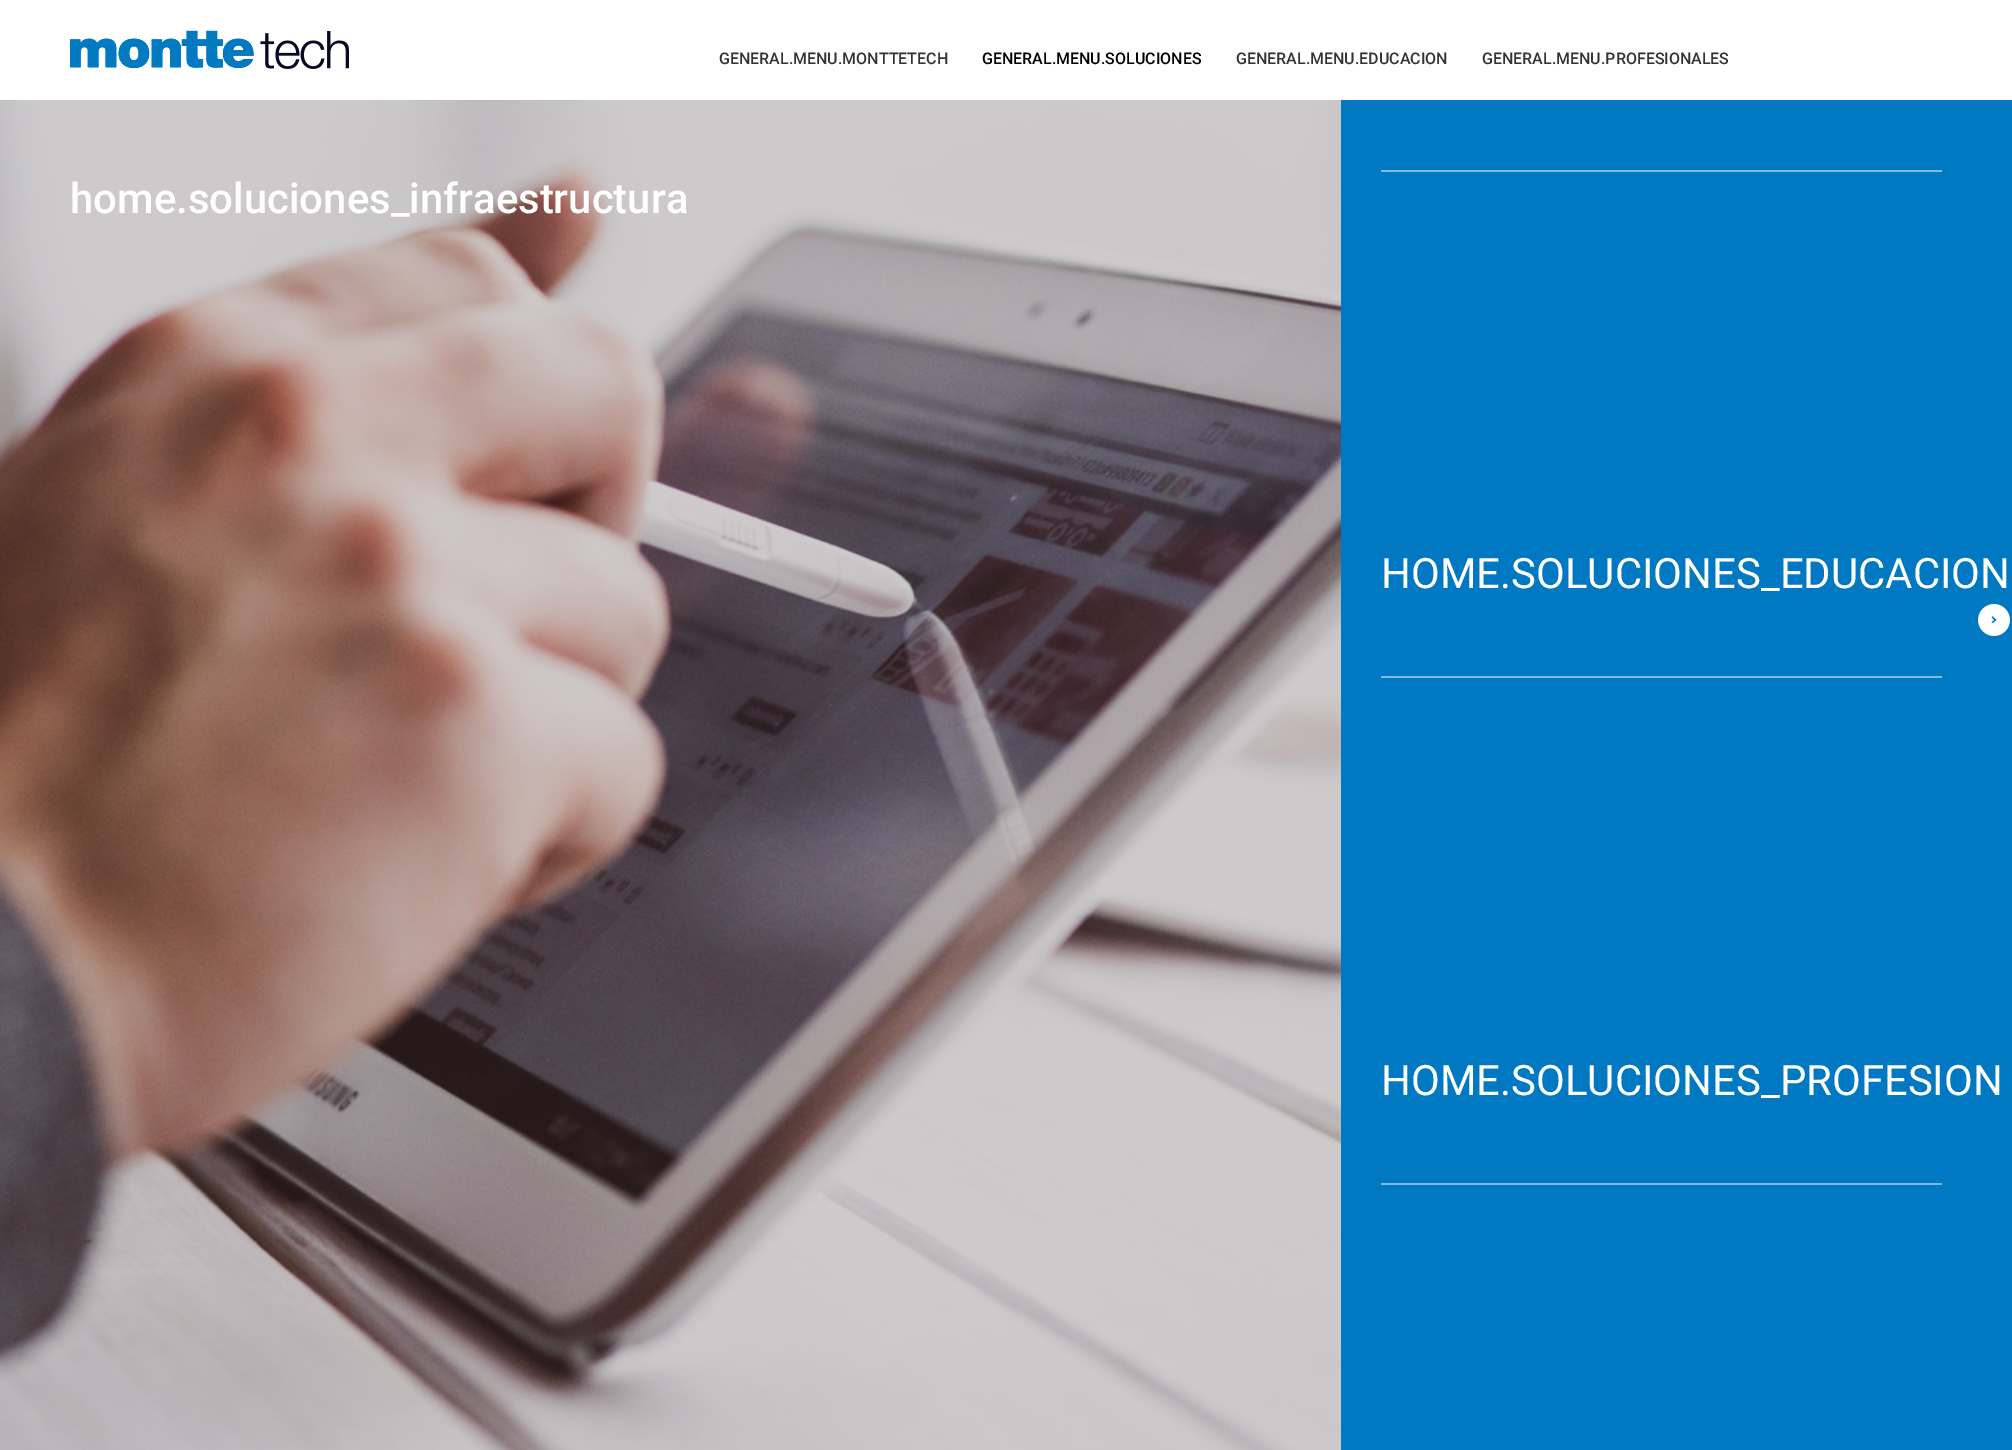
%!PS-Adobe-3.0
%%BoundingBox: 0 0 2012 1450
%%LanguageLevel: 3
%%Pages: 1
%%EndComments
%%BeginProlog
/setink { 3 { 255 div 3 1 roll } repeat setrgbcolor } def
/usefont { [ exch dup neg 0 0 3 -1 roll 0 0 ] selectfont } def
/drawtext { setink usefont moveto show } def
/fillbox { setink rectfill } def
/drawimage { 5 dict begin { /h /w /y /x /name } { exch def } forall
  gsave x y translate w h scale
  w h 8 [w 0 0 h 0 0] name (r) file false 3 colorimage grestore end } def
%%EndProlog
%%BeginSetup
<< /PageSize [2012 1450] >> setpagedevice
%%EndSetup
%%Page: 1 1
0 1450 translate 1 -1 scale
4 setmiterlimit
0 0 2012 1450 255 255 255 fillbox
(assets/img1.rgb) 70 30 279 39 drawimage
(GENERAL.MENU.MONTTETECH) 719 64 /Roboto-Medium 16 51 51 51 drawtext
(GENERAL.MENU.SOLUCIONES) 982 64 /Roboto-Medium 16 0 0 0 drawtext
(GENERAL.MENU.EDUCACION) 1236 64 /Roboto-Medium 16 51 51 51 drawtext
(GENERAL.MENU.PROFESIONALES) 1482 64 /Roboto-Medium 16 51 51 51 drawtext
(assets/img2.rgb) 0 100 1341 1350 drawimage
(home.soluciones_infraestructura) 70 213 /Roboto-Medium 41.9 255 255 255 drawtext
1341 100 671 1350 1 121 194 fillbox
1381 170 561 2 128 188 225 fillbox
1381 676 561 2 128 188 225 fillbox
(HOME.SOLUCIONES_EDUCACION) 1381 588 /Roboto-Regular 41.9 255 255 255 drawtext
(assets/img3.rgb) 1978 604 32 32 drawimage
1381 1183 561 2 128 188 225 fillbox
(HOME.SOLUCIONES_PROFESION) 1381 1095 /Roboto-Regular 41.9 255 255 255 drawtext
showpage
%%EOF
